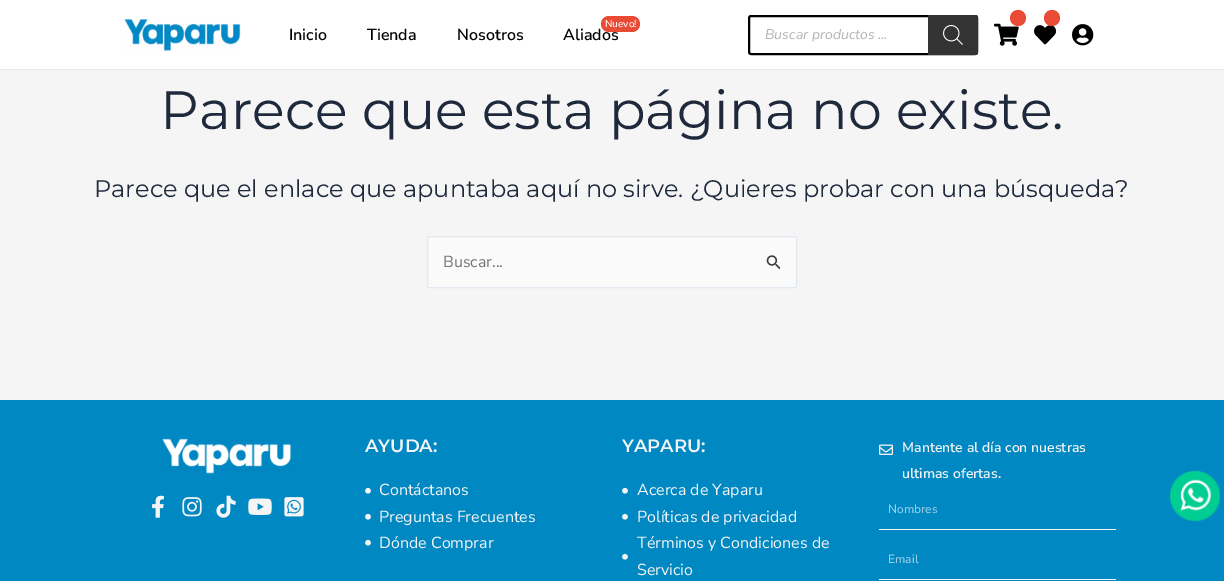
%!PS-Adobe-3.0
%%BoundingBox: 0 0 1224 581
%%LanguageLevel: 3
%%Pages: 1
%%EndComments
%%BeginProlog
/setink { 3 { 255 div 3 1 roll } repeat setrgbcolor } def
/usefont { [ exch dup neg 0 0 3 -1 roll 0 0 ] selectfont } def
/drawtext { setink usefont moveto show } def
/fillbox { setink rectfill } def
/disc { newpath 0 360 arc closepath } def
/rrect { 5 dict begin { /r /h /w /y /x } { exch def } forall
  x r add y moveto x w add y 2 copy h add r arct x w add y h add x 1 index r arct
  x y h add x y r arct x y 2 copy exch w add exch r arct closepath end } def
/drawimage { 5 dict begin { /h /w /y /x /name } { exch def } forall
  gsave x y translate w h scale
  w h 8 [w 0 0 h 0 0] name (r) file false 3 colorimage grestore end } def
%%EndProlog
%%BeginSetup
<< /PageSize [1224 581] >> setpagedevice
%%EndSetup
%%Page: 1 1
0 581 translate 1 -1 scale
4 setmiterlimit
0 0 1224 581 245 245 245 fillbox
0 0 1224 69 255 255 255 fillbox
0 69 1224 1 235 235 235 fillbox
(assets/img1.rgb) 124 19 117 33 drawimage
(Inicio) 289 40 /NunitoSans-SemiBold 16 0 0 0 drawtext
(Tienda) 367 40 /NunitoSans-SemiBold 16 0 0 0 drawtext
(Nosotros) 457 40 /NunitoSans-SemiBold 16 0 0 0 drawtext
(Aliados) 563 40 /NunitoSans-SemiBold 16 0 0 0 drawtext
233 75 53 setink
601 16 39 16 8 rrect fill
(Nuevo!) 605 27 /NunitoSans-Medium 10 255 255 255 drawtext
0 0 0 setink
2 setlinewidth
749 16 228 38 2 rrect stroke
(Buscar productos ...) 765 39 /NunitoSans-Italic 14 179 179 179 drawtext
51 51 51 setink
928 15 moveto 976 15 lineto 977 15 978 16 978 17 curveto 978 53 lineto 978 54 977 55 976 55 curveto 928 55 lineto closepath fill
(assets/img2.rgb) 943 25 20 20 drawimage
(assets/img3.rgb) 994 23 25 23 drawimage
233 75 53 setink
1018 18 8 disc fill
(assets/img4.rgb) 1034 25 22 20 drawimage
1052 18 8 disc fill
(assets/img5.rgb) 1072 24 22 22 drawimage
(Parece que esta página no existe.) 160 129 /Montserrat-Regular 54 30 41 59 drawtext
(Parece que el enlace que apuntaba aquí no sirve. ¿Quieres probar con una búsqueda?) 94 197 /Montserrat-Regular 24 30 41 59 drawtext
250 250 250 setink
427.5 236.5 369 51 1.5 rrect gsave fill grestore
226 232 240 setink
1 setlinewidth
stroke
(Buscar...) 443 267 /NunitoSans-Regular 16 117 117 117 drawtext
(assets/img6.rgb) 766 255 14 15 drawimage
0 400 1224 181 0 136 195 fillbox
(assets/img7.rgb) 162 438 130 36 drawimage
(assets/img8.rgb) 152 495 12 23 drawimage
(assets/img9.rgb) 182 497 20 20 drawimage
(assets/img10.rgb) 216 495 20 23 drawimage
(assets/img11.rgb) 248 498 24 17 drawimage
(assets/img12.rgb) 284 497 20 20 drawimage
(AYUDA:) 365 452 /Montserrat-SemiBold 18 245 245 245 drawtext
(assets/img13.rgb) 365 487 6 7 drawimage
(Contáctanos) 379 495 /NunitoSans-Regular 16 245 245 245 drawtext
(assets/img13.rgb) 365 513 6 7 drawimage
(Preguntas Frecuentes) 379 522 /NunitoSans-Regular 16 245 245 245 drawtext
(assets/img13.rgb) 365 539 6 7 drawimage
(Dónde Comprar) 379 548 /NunitoSans-Regular 16 245 245 245 drawtext
(YAPARU:) 622 452 /Montserrat-SemiBold 18 245 245 245 drawtext
(assets/img13.rgb) 622 487 6 7 drawimage
(Acerca de Yaparu) 637 495 /NunitoSans-Regular 16 245 245 245 drawtext
(assets/img13.rgb) 622 513 6 7 drawimage
(Políticas de privacidad) 637 522 /NunitoSans-Regular 16 245 245 245 drawtext
(assets/img13.rgb) 622 553 6 7 drawimage
(Términos y Condiciones de) 637 548 /NunitoSans-Regular 16 245 245 245 drawtext
(Servicio) 637 575 /NunitoSans-Regular 16 245 245 245 drawtext
(assets/img14.rgb) 879 444 14 11 drawimage
(Mantente al día con nuestras) 902 452 /NunitoSans-SemiBold 14 245 245 245 drawtext
(ultimas ofertas.) 902 478 /NunitoSans-SemiBold 14 245 245 245 drawtext
879 529 237 1 245 245 245 fillbox
(Nombres) 888 513 /NunitoSans-Medium 12 153 207 231 drawtext
879 579 237 1 245 245 245 fillbox
(Email) 888 563 /NunitoSans-Medium 12 153 207 231 drawtext
(assets/img15.rgb) 1170 471 50 50 drawimage
showpage
%%EOF
